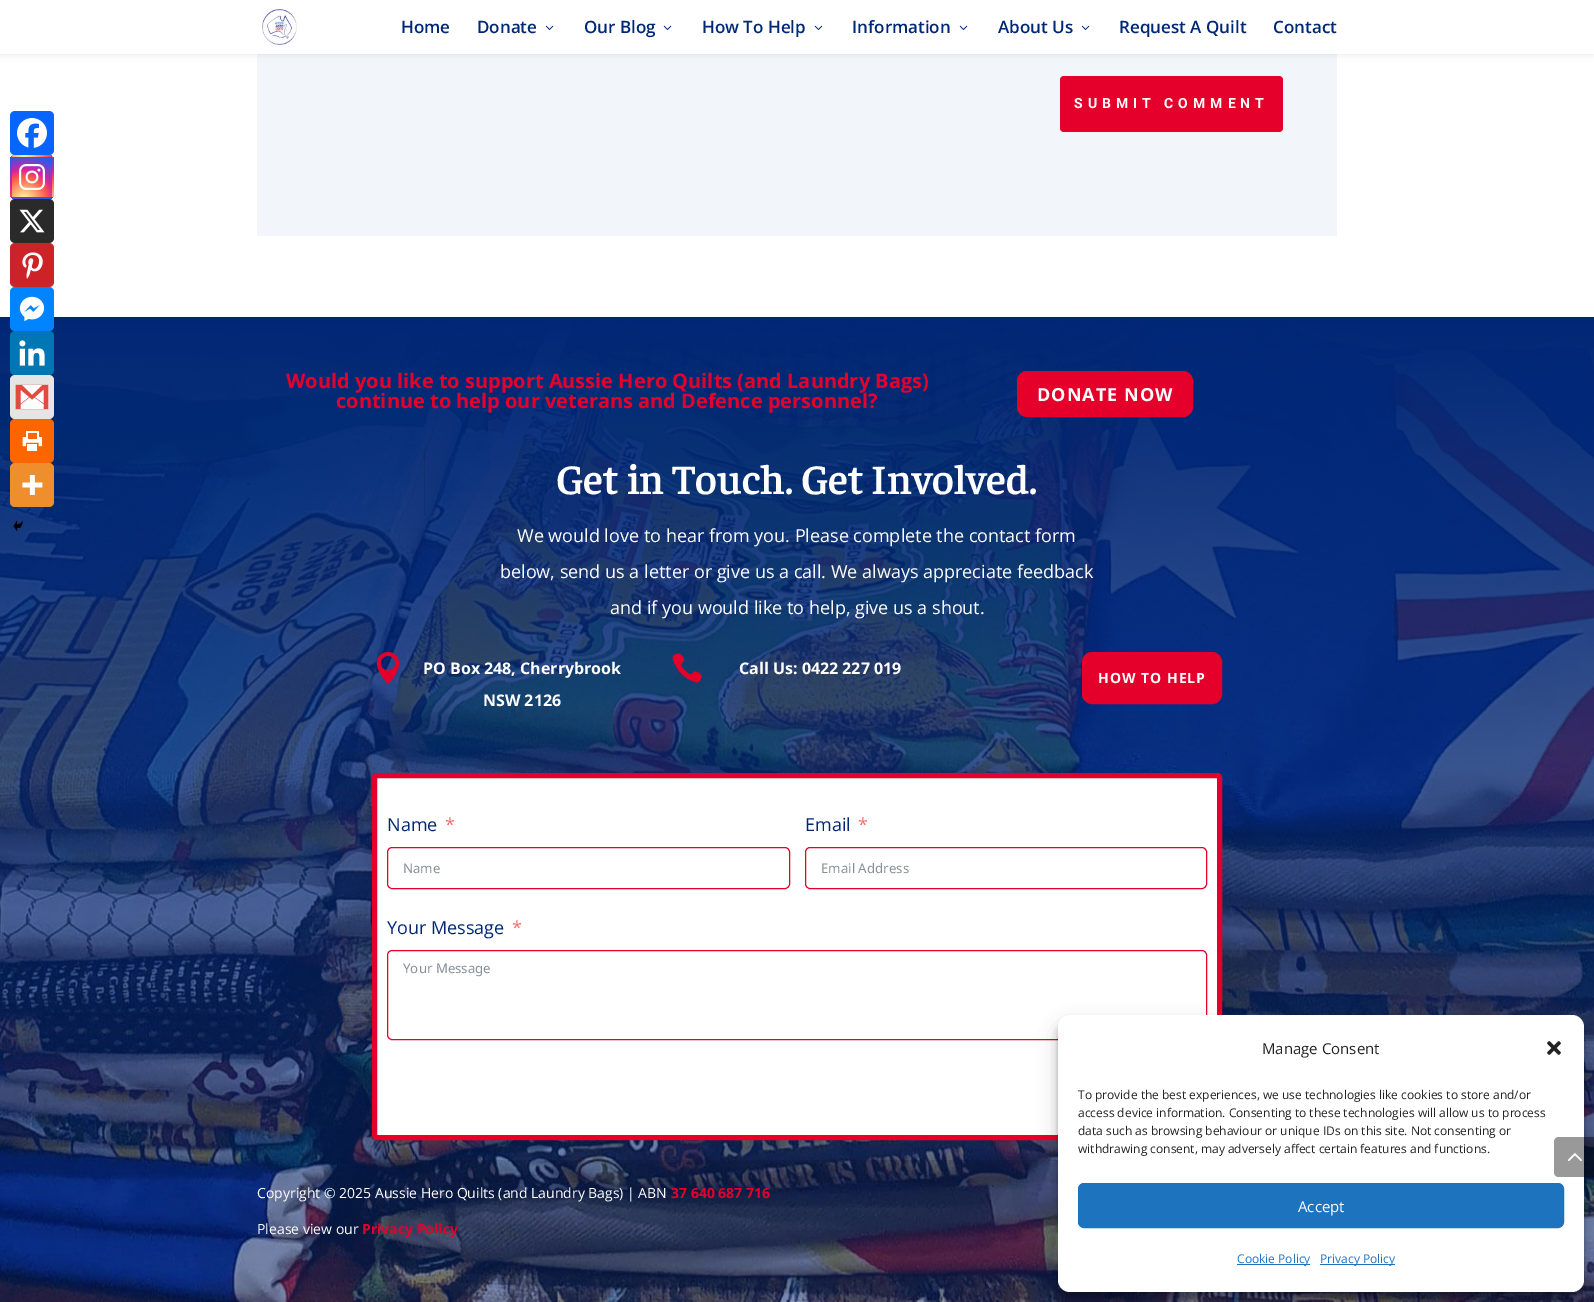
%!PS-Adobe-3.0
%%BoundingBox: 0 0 1594 1302
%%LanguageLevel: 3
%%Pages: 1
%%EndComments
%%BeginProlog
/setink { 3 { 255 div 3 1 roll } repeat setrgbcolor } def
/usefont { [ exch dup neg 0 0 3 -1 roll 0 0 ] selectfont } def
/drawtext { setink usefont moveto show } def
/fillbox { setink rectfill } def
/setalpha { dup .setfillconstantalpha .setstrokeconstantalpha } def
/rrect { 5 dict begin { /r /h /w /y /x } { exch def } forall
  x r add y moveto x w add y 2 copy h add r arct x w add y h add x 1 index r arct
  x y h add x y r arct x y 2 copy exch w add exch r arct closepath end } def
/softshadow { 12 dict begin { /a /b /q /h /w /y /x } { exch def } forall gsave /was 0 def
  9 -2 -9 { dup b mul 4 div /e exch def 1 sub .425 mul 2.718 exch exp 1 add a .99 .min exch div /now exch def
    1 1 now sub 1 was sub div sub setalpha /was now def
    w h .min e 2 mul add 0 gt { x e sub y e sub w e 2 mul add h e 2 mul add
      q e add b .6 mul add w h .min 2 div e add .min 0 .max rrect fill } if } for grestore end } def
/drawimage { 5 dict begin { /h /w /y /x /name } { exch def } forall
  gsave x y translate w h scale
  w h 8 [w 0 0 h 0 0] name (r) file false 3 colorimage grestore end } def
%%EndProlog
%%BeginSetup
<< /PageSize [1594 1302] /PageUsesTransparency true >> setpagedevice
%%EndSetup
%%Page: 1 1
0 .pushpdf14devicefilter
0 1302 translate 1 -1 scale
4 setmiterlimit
0 0 1594 1302 255 255 255 fillbox
257 54 1080 182 242 245 249 fillbox
0 0 0 setink
0 0 1594 54 0 3.5 0.1 softshadow
0 0 1594 54 255 255 255 fillbox
(assets/img1.rgb) 262 9 35 36 drawimage
(Home) 401 33 /OpenSans-SemiBold 17 0 39 118 drawtext
(Donate) 477 33 /OpenSans-SemiBold 17 0 39 118 drawtext
(assets/img2.rgb) 545 25 9 5 drawimage
(Our Blog) 584 33 /OpenSans-SemiBold 17 0 39 118 drawtext
(assets/img2.rgb) 663 25 9 5 drawimage
(How To Help) 702 33 /OpenSans-SemiBold 17 0 39 118 drawtext
(assets/img2.rgb) 814 25 9 5 drawimage
(Information) 852 33 /OpenSans-SemiBold 17 0 39 118 drawtext
(assets/img2.rgb) 959 25 9 5 drawimage
(About Us) 998 33 /OpenSans-SemiBold 17 0 39 118 drawtext
(assets/img2.rgb) 1081 25 9 5 drawimage
(Request A Quilt) 1119 33 /OpenSans-SemiBold 17 0 39 118 drawtext
(Contact) 1273 33 /OpenSans-SemiBold 17 0 39 118 drawtext
228 0 43 setink
1060 76 223 56 4 rrect fill
/Roboto-Bold 14 usefont
255 255 255 setink
1074 108 moveto 5 0 (SUBMIT COMMENT) ashow
gsave
10 155 44 44 5 rrect clip newpath
gsave 10 156 moveto 12 156 lineto 12 157 lineto 10 157 lineto closepath clip newpath -16 160 translate 51 51 scale
<< /ShadingType 3 /ColorSpace /DeviceRGB /Coords [0 0 0 0 0 1] /Extend [true true] /Function << /FunctionType 3 /Domain [0 1] /Functions [<< /FunctionType 2 /Domain [0 1] /C0 [0.992 0.957 0.592] /C1 [0.992 0.957 0.592] /N 1 >> << /FunctionType 2 /Domain [0 1] /C0 [0.992 0.957 0.592] /C1 [0.992 0.349 0.286] /N 1 >> << /FunctionType 2 /Domain [0 1] /C0 [0.992 0.349 0.286] /C1 [0.839 0.141 0.624] /N 1 >> << /FunctionType 2 /Domain [0 1] /C0 [0.839 0.141 0.624] /C1 [0.157 0.353 0.922] /N 1 >> << /FunctionType 2 /Domain [0 1] /C0 [0.157 0.353 0.922] /C1 [0.157 0.353 0.922] /N 1 >>] /Bounds [0.05 0.45 0.6 0.9] /Encode [0 1 0 1 0 1 0 1 0 1] >> >> shfill grestore
gsave 52 156 moveto 54 156 lineto 54 157 lineto 52 157 lineto closepath clip newpath 64 160 translate 51 51 scale
<< /ShadingType 3 /ColorSpace /DeviceRGB /Coords [0 0 0 0 0 1] /Extend [true true] /Function << /FunctionType 3 /Domain [0 1] /Functions [<< /FunctionType 2 /Domain [0 1] /C0 [0.992 0.957 0.592] /C1 [0.992 0.957 0.592] /N 1 >> << /FunctionType 2 /Domain [0 1] /C0 [0.992 0.957 0.592] /C1 [0.992 0.349 0.286] /N 1 >> << /FunctionType 2 /Domain [0 1] /C0 [0.992 0.349 0.286] /C1 [0.839 0.141 0.624] /N 1 >> << /FunctionType 2 /Domain [0 1] /C0 [0.839 0.141 0.624] /C1 [0.157 0.353 0.922] /N 1 >> << /FunctionType 2 /Domain [0 1] /C0 [0.157 0.353 0.922] /C1 [0.157 0.353 0.922] /N 1 >>] /Bounds [0.05 0.45 0.6 0.9] /Encode [0 1 0 1 0 1 0 1 0 1] >> >> shfill grestore
gsave 10 197 moveto 12 197 lineto 12 198 lineto 10 198 lineto closepath clip newpath -16 240 translate 51 51 scale
<< /ShadingType 3 /ColorSpace /DeviceRGB /Coords [0 0 0 0 0 1] /Extend [true true] /Function << /FunctionType 3 /Domain [0 1] /Functions [<< /FunctionType 2 /Domain [0 1] /C0 [0.992 0.957 0.592] /C1 [0.992 0.957 0.592] /N 1 >> << /FunctionType 2 /Domain [0 1] /C0 [0.992 0.957 0.592] /C1 [0.992 0.349 0.286] /N 1 >> << /FunctionType 2 /Domain [0 1] /C0 [0.992 0.349 0.286] /C1 [0.839 0.141 0.624] /N 1 >> << /FunctionType 2 /Domain [0 1] /C0 [0.839 0.141 0.624] /C1 [0.157 0.353 0.922] /N 1 >> << /FunctionType 2 /Domain [0 1] /C0 [0.157 0.353 0.922] /C1 [0.157 0.353 0.922] /N 1 >>] /Bounds [0.05 0.45 0.6 0.9] /Encode [0 1 0 1 0 1 0 1 0 1] >> >> shfill grestore
gsave 52 197 moveto 54 197 lineto 54 198 lineto 52 198 lineto closepath clip newpath 64 240 translate 51 51 scale
<< /ShadingType 3 /ColorSpace /DeviceRGB /Coords [0 0 0 0 0 1] /Extend [true true] /Function << /FunctionType 3 /Domain [0 1] /Functions [<< /FunctionType 2 /Domain [0 1] /C0 [0.992 0.957 0.592] /C1 [0.992 0.957 0.592] /N 1 >> << /FunctionType 2 /Domain [0 1] /C0 [0.992 0.957 0.592] /C1 [0.992 0.349 0.286] /N 1 >> << /FunctionType 2 /Domain [0 1] /C0 [0.992 0.349 0.286] /C1 [0.839 0.141 0.624] /N 1 >> << /FunctionType 2 /Domain [0 1] /C0 [0.839 0.141 0.624] /C1 [0.157 0.353 0.922] /N 1 >> << /FunctionType 2 /Domain [0 1] /C0 [0.157 0.353 0.922] /C1 [0.157 0.353 0.922] /N 1 >>] /Bounds [0.05 0.45 0.6 0.9] /Encode [0 1 0 1 0 1 0 1 0 1] >> >> shfill grestore
grestore
(assets/img3.rgb) 0 317 1594 985 drawimage
(Would you like to support Aussie Hero Quilts \(and Laundry Bags\)) 286 388 /OpenSans-Bold 20 228 0 43 drawtext
(continue to help our veterans and Defence personnel?) 336 408 /OpenSans-Bold 20 228 0 43 drawtext
1018 372 174 44 9 rrect gsave fill grestore
2 setlinewidth
stroke
/OpenSans-Bold 18 usefont
255 255 255 setink
1037 401 moveto 1 0 (DONATE NOW) ashow
0.1 setalpha
424 448 1 67 0 0 0 fillbox
1 setalpha
7 101 254 setink
10 111 44 44 5 rrect fill
(assets/img4.rgb) 17 118 30 30 drawimage
gsave
10 155 44 44 5 rrect clip newpath
gsave 10 156 moveto 12 156 lineto 12 157 lineto 10 157 lineto closepath clip newpath -16 160 translate 51 51 scale
<< /ShadingType 3 /ColorSpace /DeviceRGB /Coords [0 0 0 0 0 1] /Extend [true true] /Function << /FunctionType 3 /Domain [0 1] /Functions [<< /FunctionType 2 /Domain [0 1] /C0 [0.992 0.957 0.592] /C1 [0.992 0.957 0.592] /N 1 >> << /FunctionType 2 /Domain [0 1] /C0 [0.992 0.957 0.592] /C1 [0.992 0.349 0.286] /N 1 >> << /FunctionType 2 /Domain [0 1] /C0 [0.992 0.349 0.286] /C1 [0.839 0.141 0.624] /N 1 >> << /FunctionType 2 /Domain [0 1] /C0 [0.839 0.141 0.624] /C1 [0.157 0.353 0.922] /N 1 >> << /FunctionType 2 /Domain [0 1] /C0 [0.157 0.353 0.922] /C1 [0.157 0.353 0.922] /N 1 >>] /Bounds [0.05 0.45 0.6 0.9] /Encode [0 1 0 1 0 1 0 1 0 1] >> >> shfill grestore
gsave 12 155 moveto 52 155 lineto 52 157 lineto 12 157 lineto closepath clip newpath 24 160 translate 51 51 scale
<< /ShadingType 3 /ColorSpace /DeviceRGB /Coords [0 0 0 0 0 1] /Extend [true true] /Function << /FunctionType 3 /Domain [0 1] /Functions [<< /FunctionType 2 /Domain [0 1] /C0 [0.992 0.957 0.592] /C1 [0.992 0.957 0.592] /N 1 >> << /FunctionType 2 /Domain [0 1] /C0 [0.992 0.957 0.592] /C1 [0.992 0.349 0.286] /N 1 >> << /FunctionType 2 /Domain [0 1] /C0 [0.992 0.349 0.286] /C1 [0.839 0.141 0.624] /N 1 >> << /FunctionType 2 /Domain [0 1] /C0 [0.839 0.141 0.624] /C1 [0.157 0.353 0.922] /N 1 >> << /FunctionType 2 /Domain [0 1] /C0 [0.157 0.353 0.922] /C1 [0.157 0.353 0.922] /N 1 >>] /Bounds [0.05 0.45 0.6 0.9] /Encode [0 1 0 1 0 1 0 1 0 1] >> >> shfill grestore
gsave 52 156 moveto 54 156 lineto 54 157 lineto 52 157 lineto closepath clip newpath 64 160 translate 51 51 scale
<< /ShadingType 3 /ColorSpace /DeviceRGB /Coords [0 0 0 0 0 1] /Extend [true true] /Function << /FunctionType 3 /Domain [0 1] /Functions [<< /FunctionType 2 /Domain [0 1] /C0 [0.992 0.957 0.592] /C1 [0.992 0.957 0.592] /N 1 >> << /FunctionType 2 /Domain [0 1] /C0 [0.992 0.957 0.592] /C1 [0.992 0.349 0.286] /N 1 >> << /FunctionType 2 /Domain [0 1] /C0 [0.992 0.349 0.286] /C1 [0.839 0.141 0.624] /N 1 >> << /FunctionType 2 /Domain [0 1] /C0 [0.839 0.141 0.624] /C1 [0.157 0.353 0.922] /N 1 >> << /FunctionType 2 /Domain [0 1] /C0 [0.157 0.353 0.922] /C1 [0.157 0.353 0.922] /N 1 >>] /Bounds [0.05 0.45 0.6 0.9] /Encode [0 1 0 1 0 1 0 1 0 1] >> >> shfill grestore
gsave 10 157 moveto 12 157 lineto 12 197 lineto 10 197 lineto closepath clip newpath -16 200 translate 51 51 scale
<< /ShadingType 3 /ColorSpace /DeviceRGB /Coords [0 0 0 0 0 1] /Extend [true true] /Function << /FunctionType 3 /Domain [0 1] /Functions [<< /FunctionType 2 /Domain [0 1] /C0 [0.992 0.957 0.592] /C1 [0.992 0.957 0.592] /N 1 >> << /FunctionType 2 /Domain [0 1] /C0 [0.992 0.957 0.592] /C1 [0.992 0.349 0.286] /N 1 >> << /FunctionType 2 /Domain [0 1] /C0 [0.992 0.349 0.286] /C1 [0.839 0.141 0.624] /N 1 >> << /FunctionType 2 /Domain [0 1] /C0 [0.839 0.141 0.624] /C1 [0.157 0.353 0.922] /N 1 >> << /FunctionType 2 /Domain [0 1] /C0 [0.157 0.353 0.922] /C1 [0.157 0.353 0.922] /N 1 >>] /Bounds [0.05 0.45 0.6 0.9] /Encode [0 1 0 1 0 1 0 1 0 1] >> >> shfill grestore
grestore
gsave 12 157 moveto 52 157 lineto 52 197 lineto 12 197 lineto closepath clip newpath 24 200 translate 51 51 scale
<< /ShadingType 3 /ColorSpace /DeviceRGB /Coords [0 0 0 0 0 1] /Extend [true true] /Function << /FunctionType 3 /Domain [0 1] /Functions [<< /FunctionType 2 /Domain [0 1] /C0 [0.992 0.957 0.592] /C1 [0.992 0.957 0.592] /N 1 >> << /FunctionType 2 /Domain [0 1] /C0 [0.992 0.957 0.592] /C1 [0.992 0.349 0.286] /N 1 >> << /FunctionType 2 /Domain [0 1] /C0 [0.992 0.349 0.286] /C1 [0.839 0.141 0.624] /N 1 >> << /FunctionType 2 /Domain [0 1] /C0 [0.839 0.141 0.624] /C1 [0.157 0.353 0.922] /N 1 >> << /FunctionType 2 /Domain [0 1] /C0 [0.157 0.353 0.922] /C1 [0.157 0.353 0.922] /N 1 >>] /Bounds [0.05 0.45 0.6 0.9] /Encode [0 1 0 1 0 1 0 1 0 1] >> >> shfill grestore
gsave
10 155 44 44 5 rrect clip newpath
gsave 52 157 moveto 54 157 lineto 54 197 lineto 52 197 lineto closepath clip newpath 64 200 translate 51 51 scale
<< /ShadingType 3 /ColorSpace /DeviceRGB /Coords [0 0 0 0 0 1] /Extend [true true] /Function << /FunctionType 3 /Domain [0 1] /Functions [<< /FunctionType 2 /Domain [0 1] /C0 [0.992 0.957 0.592] /C1 [0.992 0.957 0.592] /N 1 >> << /FunctionType 2 /Domain [0 1] /C0 [0.992 0.957 0.592] /C1 [0.992 0.349 0.286] /N 1 >> << /FunctionType 2 /Domain [0 1] /C0 [0.992 0.349 0.286] /C1 [0.839 0.141 0.624] /N 1 >> << /FunctionType 2 /Domain [0 1] /C0 [0.839 0.141 0.624] /C1 [0.157 0.353 0.922] /N 1 >> << /FunctionType 2 /Domain [0 1] /C0 [0.157 0.353 0.922] /C1 [0.157 0.353 0.922] /N 1 >>] /Bounds [0.05 0.45 0.6 0.9] /Encode [0 1 0 1 0 1 0 1 0 1] >> >> shfill grestore
gsave 10 197 moveto 12 197 lineto 12 198 lineto 10 198 lineto closepath clip newpath -16 240 translate 51 51 scale
<< /ShadingType 3 /ColorSpace /DeviceRGB /Coords [0 0 0 0 0 1] /Extend [true true] /Function << /FunctionType 3 /Domain [0 1] /Functions [<< /FunctionType 2 /Domain [0 1] /C0 [0.992 0.957 0.592] /C1 [0.992 0.957 0.592] /N 1 >> << /FunctionType 2 /Domain [0 1] /C0 [0.992 0.957 0.592] /C1 [0.992 0.349 0.286] /N 1 >> << /FunctionType 2 /Domain [0 1] /C0 [0.992 0.349 0.286] /C1 [0.839 0.141 0.624] /N 1 >> << /FunctionType 2 /Domain [0 1] /C0 [0.839 0.141 0.624] /C1 [0.157 0.353 0.922] /N 1 >> << /FunctionType 2 /Domain [0 1] /C0 [0.157 0.353 0.922] /C1 [0.157 0.353 0.922] /N 1 >>] /Bounds [0.05 0.45 0.6 0.9] /Encode [0 1 0 1 0 1 0 1 0 1] >> >> shfill grestore
gsave 12 197 moveto 52 197 lineto 52 199 lineto 12 199 lineto closepath clip newpath 24 240 translate 51 51 scale
<< /ShadingType 3 /ColorSpace /DeviceRGB /Coords [0 0 0 0 0 1] /Extend [true true] /Function << /FunctionType 3 /Domain [0 1] /Functions [<< /FunctionType 2 /Domain [0 1] /C0 [0.992 0.957 0.592] /C1 [0.992 0.957 0.592] /N 1 >> << /FunctionType 2 /Domain [0 1] /C0 [0.992 0.957 0.592] /C1 [0.992 0.349 0.286] /N 1 >> << /FunctionType 2 /Domain [0 1] /C0 [0.992 0.349 0.286] /C1 [0.839 0.141 0.624] /N 1 >> << /FunctionType 2 /Domain [0 1] /C0 [0.839 0.141 0.624] /C1 [0.157 0.353 0.922] /N 1 >> << /FunctionType 2 /Domain [0 1] /C0 [0.157 0.353 0.922] /C1 [0.157 0.353 0.922] /N 1 >>] /Bounds [0.05 0.45 0.6 0.9] /Encode [0 1 0 1 0 1 0 1 0 1] >> >> shfill grestore
gsave 52 197 moveto 54 197 lineto 54 198 lineto 52 198 lineto closepath clip newpath 64 240 translate 51 51 scale
<< /ShadingType 3 /ColorSpace /DeviceRGB /Coords [0 0 0 0 0 1] /Extend [true true] /Function << /FunctionType 3 /Domain [0 1] /Functions [<< /FunctionType 2 /Domain [0 1] /C0 [0.992 0.957 0.592] /C1 [0.992 0.957 0.592] /N 1 >> << /FunctionType 2 /Domain [0 1] /C0 [0.992 0.957 0.592] /C1 [0.992 0.349 0.286] /N 1 >> << /FunctionType 2 /Domain [0 1] /C0 [0.992 0.349 0.286] /C1 [0.839 0.141 0.624] /N 1 >> << /FunctionType 2 /Domain [0 1] /C0 [0.839 0.141 0.624] /C1 [0.157 0.353 0.922] /N 1 >> << /FunctionType 2 /Domain [0 1] /C0 [0.157 0.353 0.922] /C1 [0.157 0.353 0.922] /N 1 >>] /Bounds [0.05 0.45 0.6 0.9] /Encode [0 1 0 1 0 1 0 1 0 1] >> >> shfill grestore
grestore
(assets/img5.rgb) 19 164 26 26 drawimage
42 42 42 setink
10 199 44 44 5 rrect fill
(assets/img6.rgb) 19 209 26 24 drawimage
204 35 41 setink
10 243 44 44 5 rrect fill
(assets/img7.rgb) 22 252 21 27 drawimage
0 132 255 setink
10 287 44 44 5 rrect fill
(assets/img8.rgb) 19 296 26 26 drawimage
0 119 181 setink
10 331 44 44 5 rrect fill
(assets/img9.rgb) 19 340 26 26 drawimage
229 229 229 setink
10 375 44 44 5 rrect fill
(assets/img10.rgb) 15 384 34 26 drawimage
253 101 0 setink
10 419 44 44 5 rrect fill
(assets/img11.rgb) 22 431 21 20 drawimage
238 142 45 setink
10 463 44 44 5 rrect fill
(assets/img12.rgb) 22 475 21 20 drawimage
(assets/img13.rgb) 13 520 10 12 drawimage
(Get in Touch. Get Involved.) 556 494 /Faustina-SemiBold 42 255 255 255 drawtext
(We would love to hear from you. Please complete the contact form) 517 542 /OpenSans-Regular 18 255 255 255 drawtext
(below, send us a letter or give us a call. We always appreciate feedback) 500 578 /OpenSans-Regular 18 255 255 255 drawtext
(and if you would like to help, give us a shout.) 610 614 /OpenSans-Regular 18 255 255 255 drawtext
gsave
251 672 moveto 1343 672 lineto 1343 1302 lineto 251 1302 lineto closepath 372 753 moveto 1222 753 lineto 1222 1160 lineto 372 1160 lineto closepath eoclip newpath
0 0 0 setink
402 823 790 347 0 50 0.22 softshadow
grestore
(assets/img14.rgb) 376 652 24 32 drawimage
(PO Box 248, Cherrybrook) 423 674 /OpenSans-Bold 16 255 255 255 drawtext
(NSW 2126) 483 706 /OpenSans-Bold 16 255 255 255 drawtext
(assets/img15.rgb) 672 653 30 30 drawimage
(Call Us: 0422 227 019) 739 674 /OpenSans-Bold 16 255 255 255 drawtext
228 0 43 setink
1083 653 138 50 9 rrect gsave fill grestore
stroke
/OpenSans-Bold 14 usefont
255 255 255 setink
1098 683 moveto 1 0 (HOW TO HELP) ashow
374.5 775.5 845 362 2.5 rrect gsave fill grestore
228 0 43 setink
5 setlinewidth
stroke
(Name) 387 831 /OpenSans-Regular 18 0 39 118 drawtext
(*) 445 831 /OpenSans-Regular 18 245 108 108 drawtext
228 0 43 setink
1 setlinewidth
387.5 847.5 402 41 4.5 rrect stroke
(Name) 403 873 /NotoSans-Regular 13.25 134 142 150 drawtext
(Email) 805 831 /OpenSans-Regular 18 0 39 118 drawtext
(*) 858 831 /OpenSans-Regular 18 245 108 108 drawtext
228 0 43 setink
805.5 847.5 401 41 4.5 rrect stroke
(Email Address) 821 873 /NotoSans-Regular 13.25 134 142 150 drawtext
(Your Message) 387 934 /OpenSans-Regular 18 0 39 118 drawtext
(*) 512 934 /OpenSans-Regular 18 245 108 108 drawtext
228 0 43 setink
387.5 950.5 819 89 4.5 rrect stroke
(Your Message) 403 973 /NotoSans-Regular 13.25 134 142 150 drawtext
(Copyright © 2025 Aussie Hero Quilts \(and Laundry Bags\) | ABN) 257 1198 /OpenSans-Regular 14 255 255 255 drawtext
(37 640 687 716) 671 1198 /OpenSans-Bold 14 228 0 43 drawtext
(Please view our) 257 1234 /OpenSans-Regular 14 255 255 255 drawtext
(Privacy Policy) 362 1234 /OpenSans-Bold 14 228 0 43 drawtext
0 0 0 setink
1058 1021 526 277 12 3 0.23 softshadow
1058 1025 526 277 12 10 0.19 softshadow
255 255 255 setink
1058 1015 526 277 12 rrect fill
(Manage Consent) 1262 1054 /OpenSans-Regular 15 34 34 34 drawtext
(assets/img16.rgb) 1547 1041 14 14 drawimage
(To provide the best experiences, we use technologies like cookies to store and/or) 1078 1099 /OpenSans-Regular 12 34 34 34 drawtext
(access device information. Consenting to these technologies will allow us to process) 1078 1117 /OpenSans-Regular 12 34 34 34 drawtext
(data such as browsing behaviour or unique IDs on this site. Not consenting or) 1078 1135 /OpenSans-Regular 12 34 34 34 drawtext
(withdrawing consent, may adversely affect certain features and functions.) 1078 1153 /OpenSans-Regular 12 34 34 34 drawtext
30 115 190 setink
1078.5 1183.5 485 44 5.5 rrect gsave fill grestore
stroke
(Accept) 1298 1212 /OpenSans-Regular 15 255 255 255 drawtext
1237 1264 73 1 30 115 190 fillbox
(Cookie Policy) 1237 1263 /OpenSans-Regular 12 30 115 190 drawtext
1320 1264 75 1 30 115 190 fillbox
(Privacy Policy) 1320 1263 /OpenSans-Regular 12 30 115 190 drawtext
0.4 setalpha
0 0 0 setink
1559 1137 moveto 1594 1137 lineto 1594 1177 lineto 1559 1177 lineto 1556 1177 1554 1175 1554 1172 curveto 1554 1142 lineto 1554 1139 1556 1137 1559 1137 curveto closepath fill
1 setalpha
(assets/img17.rgb) 1568 1153 14 8 drawimage
.poppdf14devicefilter showpage
%%EOF
